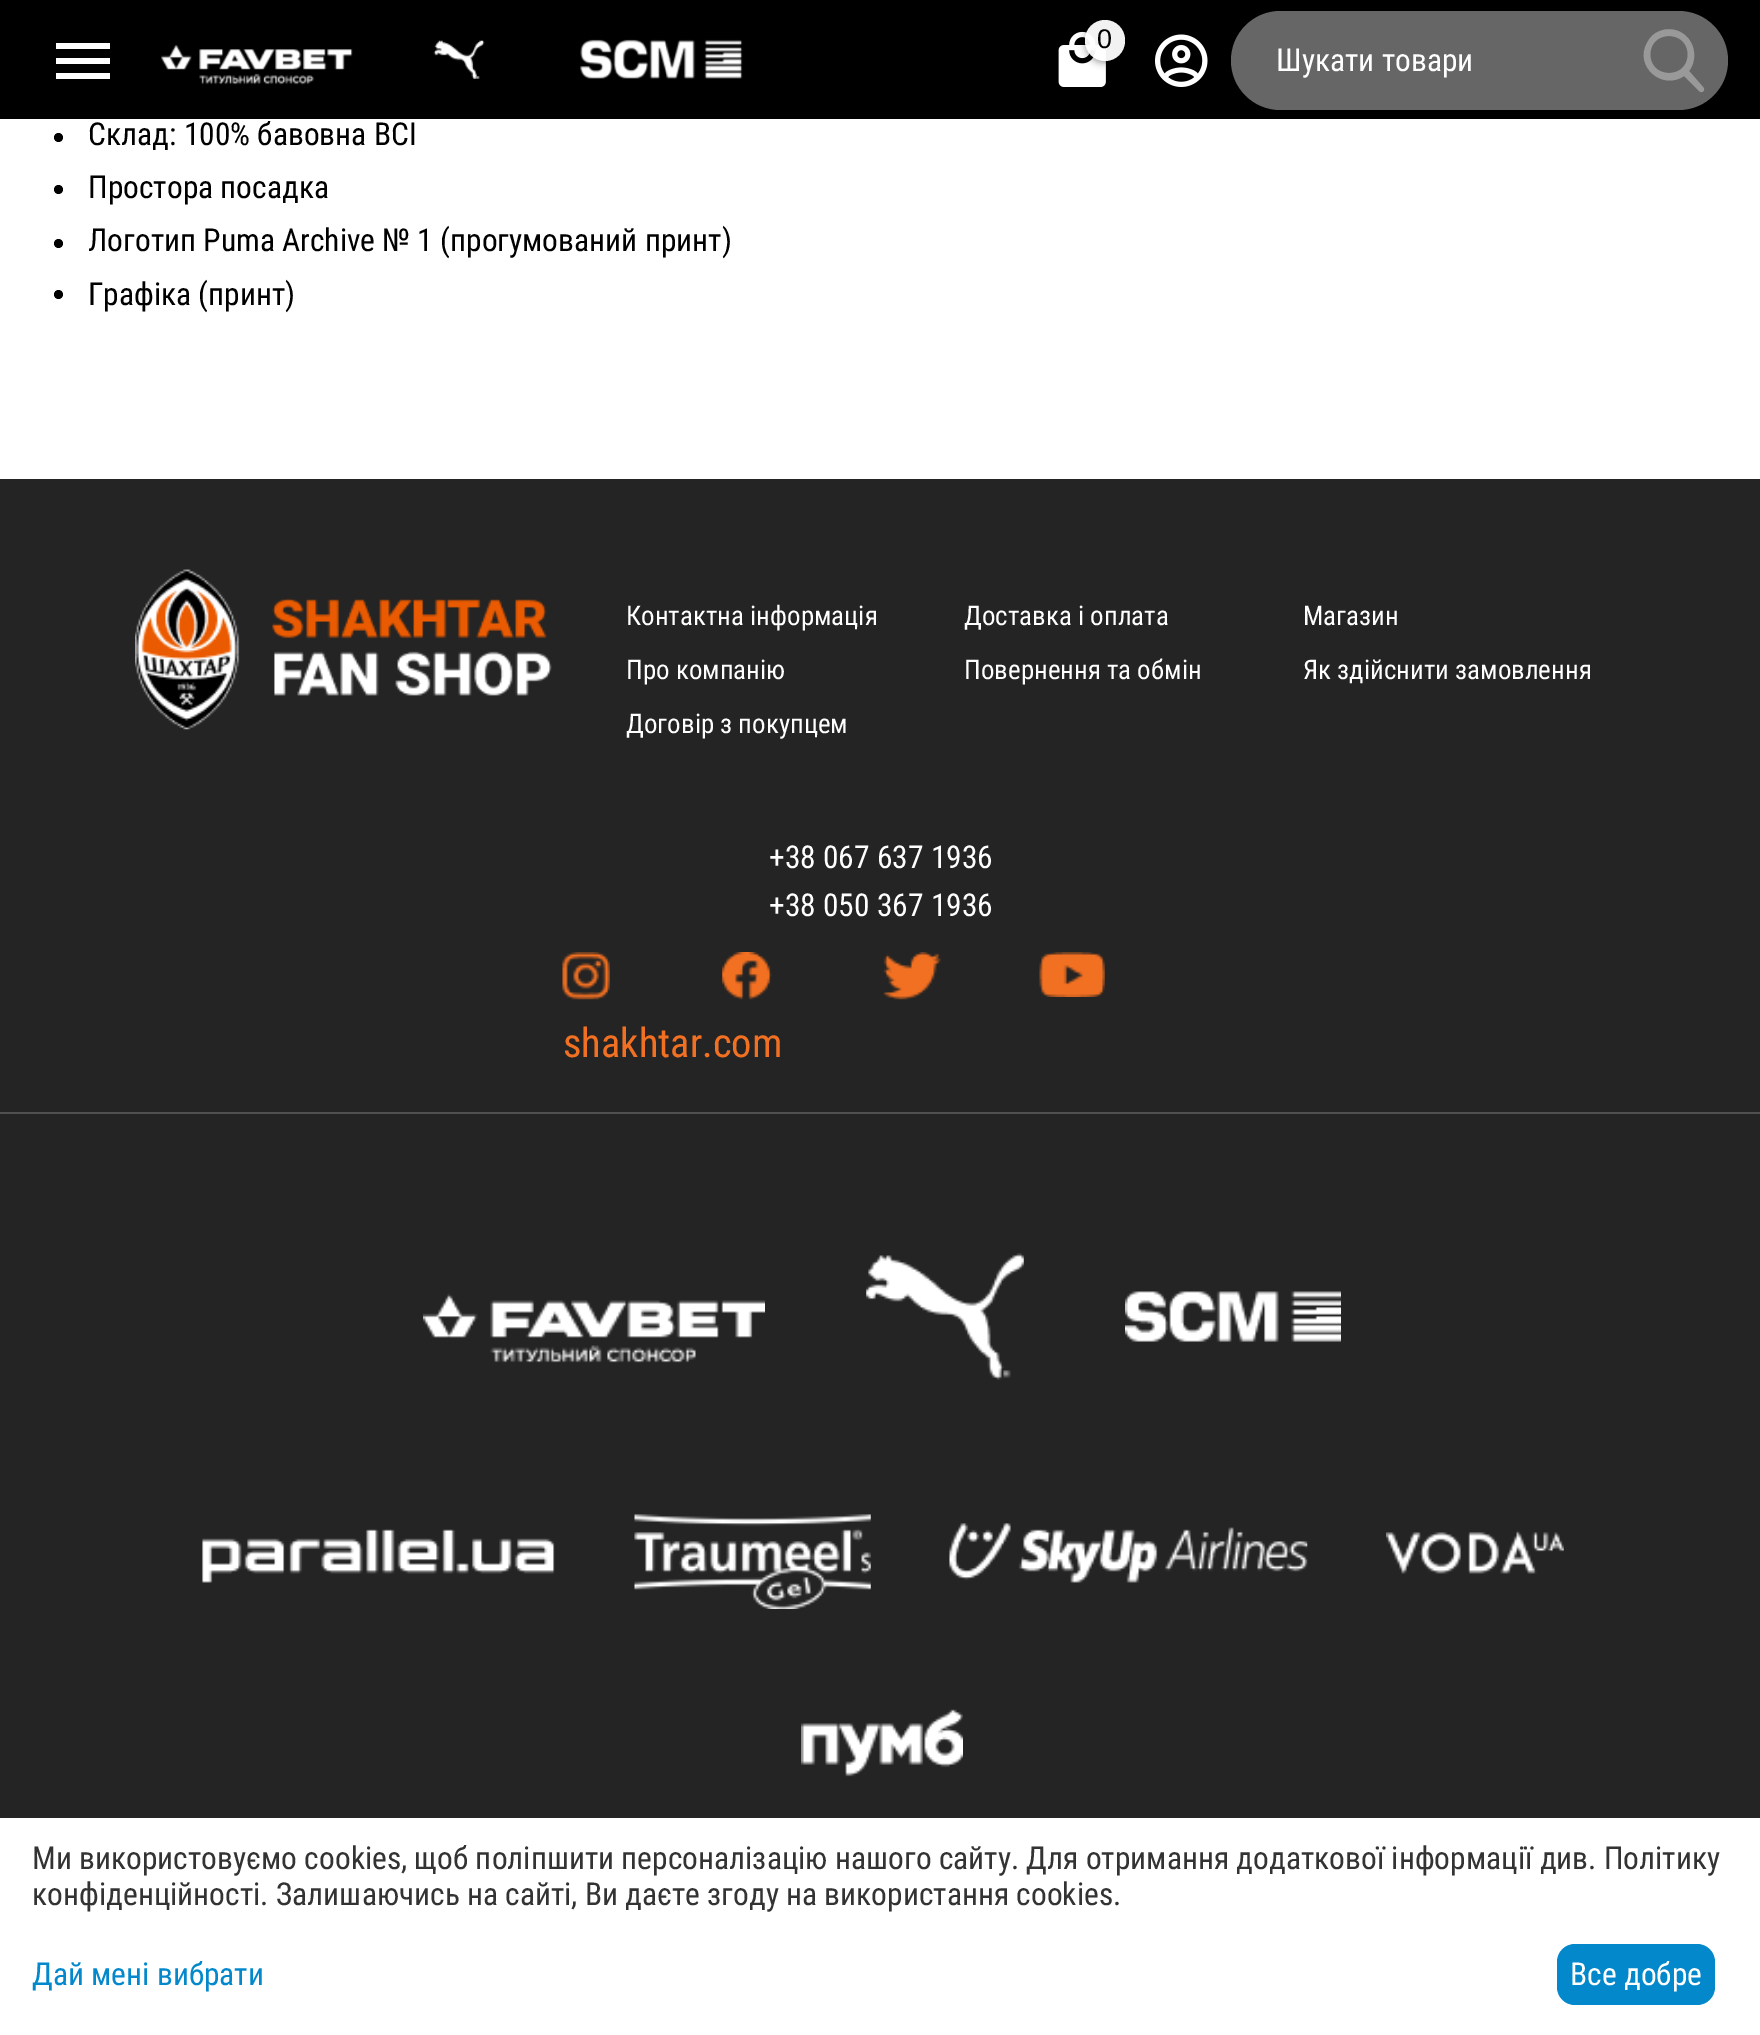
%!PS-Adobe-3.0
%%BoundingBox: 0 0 1760 2035
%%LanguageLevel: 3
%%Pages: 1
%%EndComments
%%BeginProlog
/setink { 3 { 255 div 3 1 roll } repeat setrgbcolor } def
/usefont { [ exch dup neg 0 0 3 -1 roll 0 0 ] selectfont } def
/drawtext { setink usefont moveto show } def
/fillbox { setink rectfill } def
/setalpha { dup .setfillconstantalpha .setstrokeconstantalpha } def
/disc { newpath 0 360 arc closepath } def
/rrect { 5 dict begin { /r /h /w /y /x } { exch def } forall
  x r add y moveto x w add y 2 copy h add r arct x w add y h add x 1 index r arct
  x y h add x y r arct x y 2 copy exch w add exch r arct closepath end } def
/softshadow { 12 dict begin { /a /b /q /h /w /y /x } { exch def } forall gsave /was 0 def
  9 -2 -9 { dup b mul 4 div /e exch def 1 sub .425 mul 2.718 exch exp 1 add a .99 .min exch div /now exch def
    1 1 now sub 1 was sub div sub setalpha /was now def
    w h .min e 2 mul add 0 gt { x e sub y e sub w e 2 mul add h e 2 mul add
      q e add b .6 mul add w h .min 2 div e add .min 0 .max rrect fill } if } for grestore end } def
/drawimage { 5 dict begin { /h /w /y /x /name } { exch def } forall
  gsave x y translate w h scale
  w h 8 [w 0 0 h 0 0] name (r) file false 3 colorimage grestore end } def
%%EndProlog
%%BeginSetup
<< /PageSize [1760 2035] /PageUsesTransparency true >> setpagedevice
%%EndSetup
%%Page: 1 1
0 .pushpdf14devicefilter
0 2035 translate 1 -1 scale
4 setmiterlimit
0 0 1760 2035 255 255 255 fillbox
0 0 1760 119 0 0 0 fillbox
255 255 255 setink
56 79 moveto 110 79 lineto 110 73 lineto 56 73 lineto closepath 56 64 moveto 110 64 lineto 110 58 lineto 56 58 lineto closepath 56 43 moveto 56 49 lineto 110 49 lineto 110 43 lineto closepath fill
(assets/img1.rgb) 161 45 192 40 drawimage
(assets/img2.rgb) 433 40 52 39 drawimage
(assets/img3.rgb) 580 39 163 40 drawimage
(assets/img4.rgb) 1058 31 48 56 drawimage
gsave
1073 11 moveto 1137 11 lineto 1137 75 lineto 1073 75 lineto closepath 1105 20 moveto 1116 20 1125 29 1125 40 curveto 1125 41 lineto 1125 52 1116 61 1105 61 curveto 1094 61 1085 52 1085 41 curveto 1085 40 lineto 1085 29 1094 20 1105 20 curveto closepath eoclip newpath
0 0 0 setink
1085 23 40 40 20 3.5 0.35 softshadow
grestore
0.95 setalpha
1085 20 40 41 20 rrect fill
1 setalpha
(0) 1097 48 /LiberationSans-Regular 27 0 0 0 drawtext
(assets/img5.rgb) 1155 34 53 53 drawimage
102 102 102 setink
1231 11 497 99 49.5 rrect fill
(Шукати товари) 1276 71 /RobotoCondensed-Regular 31.5 255 255 255 drawtext
153 153 153 setink
1703 87 moveto 1689 71 lineto 1698 59 1695 41 1682 33 curveto 1676 29 1667 28 1660 31 curveto 1654 33 1650 37 1647 43 curveto 1634 66 1662 91 1684 76 curveto 1699 91 lineto 1702 94 1706 90 1703 87 curveto closepath 1669 36 moveto 1694 36 1694 73 1669 73 curveto 1644 73 1644 36 1669 36 curveto closepath fill
0 0 0 setink
58.5 137.5 4.5 disc fill
(Склад: 100% бавовна BCI) 88 145 /RobotoCondensed-Regular 31.5 0 0 0 drawtext
58.5 189.5 4.5 disc fill
(Простора посадка) 88 198 /RobotoCondensed-Regular 31.5 0 0 0 drawtext
58.5 243.5 4.5 disc fill
(Логотип Puma Archive № 1 \(прогумований принт\)) 88 251 /RobotoCondensed-Regular 31.5 0 0 0 drawtext
58.5 294.5 4.5 disc fill
(Графіка \(принт\)) 88 305 /RobotoCondensed-Regular 31.5 0 0 0 drawtext
0 479 1760 1339 36 36 36 fillbox
0 1112 1760 2 80 80 80 fillbox
(assets/img6.rgb) 135 569 417 161 drawimage
(Контактна інформація) 626 625 /RobotoCondensed-Regular 27 255 255 255 drawtext
(Про компанію) 626 679 /RobotoCondensed-Regular 27 255 255 255 drawtext
(Договір з покупцем) 626 733 /RobotoCondensed-Regular 27 255 255 255 drawtext
(Доставка і оплата) 964 625 /RobotoCondensed-Regular 27 255 255 255 drawtext
(Повернення та обмін) 964 679 /RobotoCondensed-Regular 27 255 255 255 drawtext
(Магазин) 1303 625 /RobotoCondensed-Regular 27 255 255 255 drawtext
(Як здійснити замовлення) 1303 679 /RobotoCondensed-Regular 27 255 255 255 drawtext
(+38 067 637 1936) 769 868 /RobotoCondensed-Regular 31.5 255 255 255 drawtext
(+38 050 367 1936) 769 916 /RobotoCondensed-Regular 31.5 255 255 255 drawtext
(assets/img7.rgb) 562 952 48 48 drawimage
(assets/img8.rgb) 722 952 50 48 drawimage
(assets/img9.rgb) 883 952 58 48 drawimage
(assets/img10.rgb) 1039 952 66 45 drawimage
(shakhtar.com) 563 1057 /RobotoCondensed-Regular 40.5 242 112 34 drawtext
(assets/img11.rgb) 423 1293 342 70 drawimage
(assets/img12.rgb) 866 1253 158 127 drawimage
(assets/img13.rgb) 1125 1291 216 51 drawimage
(assets/img14.rgb) 202 1529 353 54 drawimage
(assets/img15.rgb) 634 1514 237 95 drawimage
(assets/img16.rgb) 949 1523 359 60 drawimage
(assets/img17.rgb) 1386 1530 178 44 drawimage
(assets/img18.rgb) 801 1709 162 68 drawimage
(Ми використовуємо cookies, щоб поліпшити персоналізацію нашого сайту. Для отримання додаткової інформації див. Політику) 32 1869 /RobotoCondensed-Regular 31.5 51 51 51 drawtext
(конфіденційності. Залишаючись на сайті, Ви даєте згоду на використання cookies.) 32 1905 /RobotoCondensed-Regular 31.5 51 51 51 drawtext
(Дай мені вибрати) 32 1985 /RobotoCondensed-Regular 31.5 3 136 204 drawtext
1557 1944 158 61 18 rrect fill
(Все добре) 1570 1985 /RobotoCondensed-Regular 31.5 255 255 255 drawtext
.poppdf14devicefilter showpage
%%EOF
